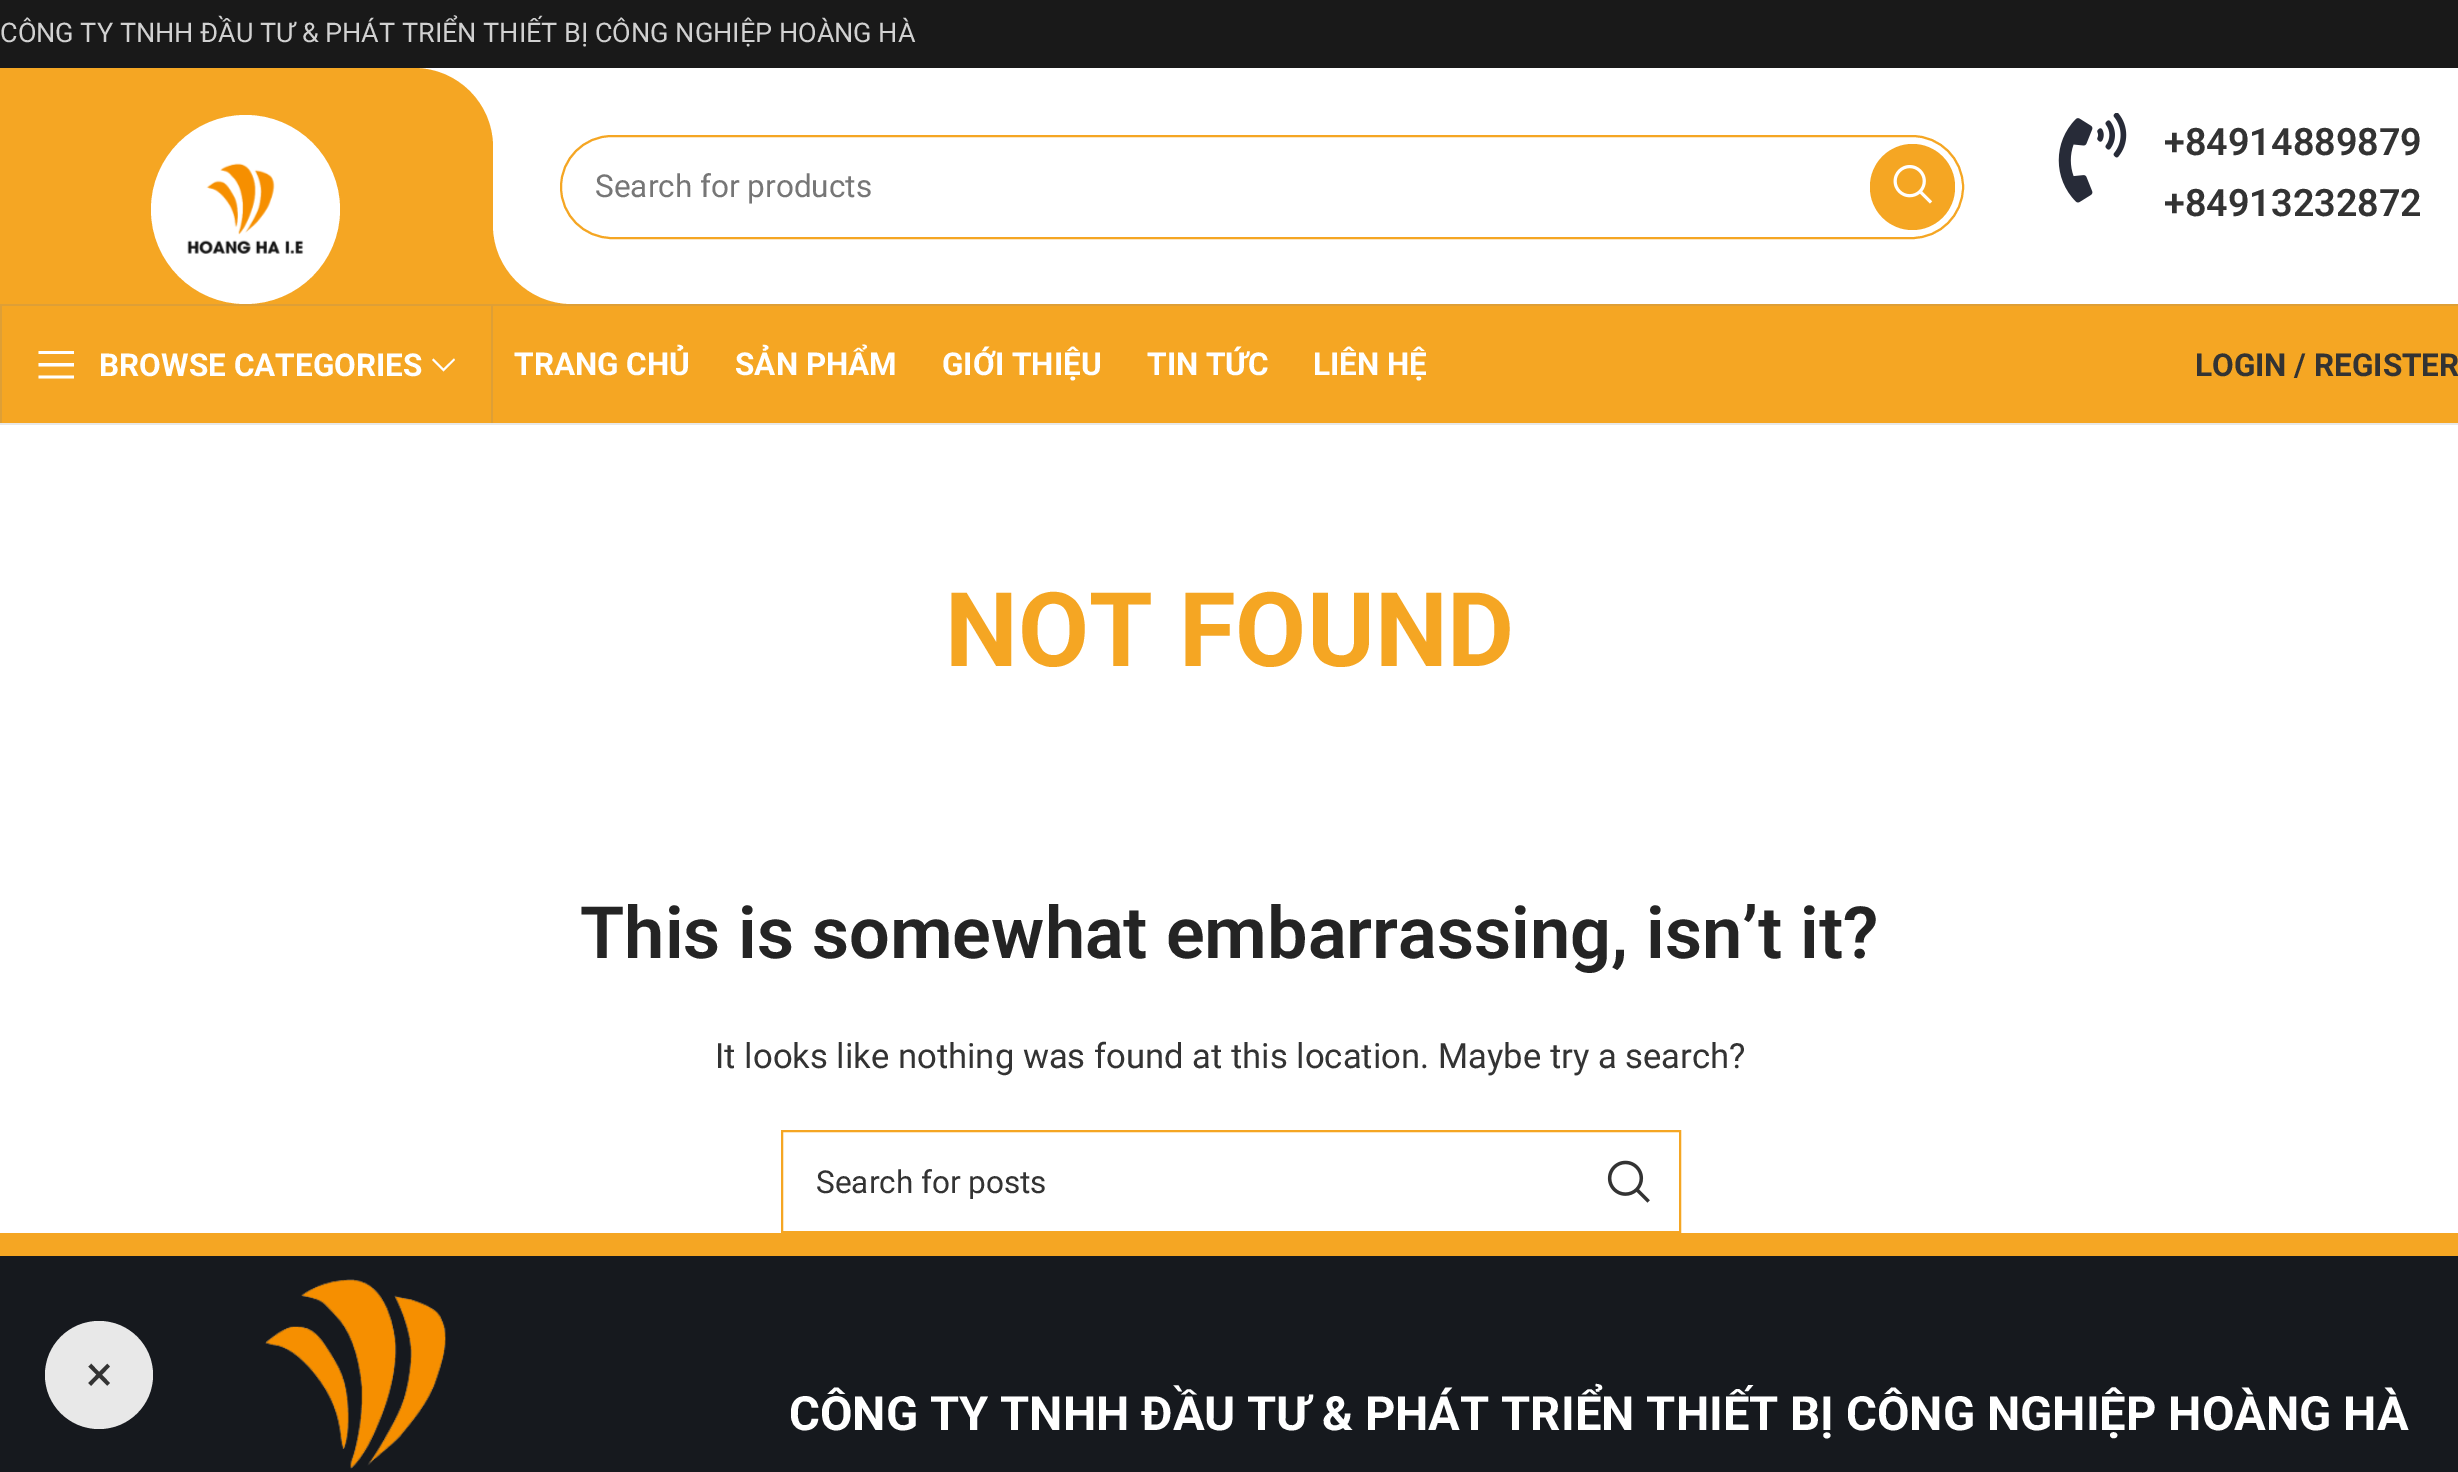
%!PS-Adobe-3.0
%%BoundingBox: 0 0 2458 1472
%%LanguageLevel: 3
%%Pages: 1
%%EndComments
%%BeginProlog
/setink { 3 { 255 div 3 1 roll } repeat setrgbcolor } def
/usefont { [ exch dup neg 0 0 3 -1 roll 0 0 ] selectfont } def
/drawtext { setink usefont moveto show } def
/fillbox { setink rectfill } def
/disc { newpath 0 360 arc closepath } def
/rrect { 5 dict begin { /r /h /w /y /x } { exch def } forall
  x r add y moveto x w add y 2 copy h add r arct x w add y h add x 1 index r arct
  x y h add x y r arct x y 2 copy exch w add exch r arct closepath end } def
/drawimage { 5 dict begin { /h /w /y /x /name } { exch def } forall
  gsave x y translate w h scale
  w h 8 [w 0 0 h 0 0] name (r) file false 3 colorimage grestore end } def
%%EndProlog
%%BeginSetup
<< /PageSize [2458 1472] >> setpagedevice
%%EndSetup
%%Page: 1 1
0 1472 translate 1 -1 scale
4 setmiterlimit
0 0 2458 1472 255 255 255 fillbox
0 0 2458 68 25 25 25 fillbox
(CÔNG TY TNHH ĐẦU TƯ & PHÁT TRIỂN THIẾT BỊ CÔNG NGHIỆP HOÀNG HÀ) 0 42 /Roboto-Regular 27 209 209 209 drawtext
245 166 35 setink
0 68 moveto 414 68 lineto 457.5 68 493 103.5 493 147 curveto 493 304 lineto 0 304 lineto closepath fill
255 255 255 setink
245.5 209.5 94.5 disc fill
(assets/img1.rgb) 187 163 117 91 drawimage
493 225 78 79 245 166 35 fillbox
255 255 255 setink
493 68 moveto 2021 68 lineto 2021 304 lineto 572 304 lineto 528.5 304 493 268.5 493 225 curveto closepath fill
245 166 35 setink
2 setlinewidth
561 136 1402 102 51 rrect stroke
(Search for products) 595 197 /Roboto-Regular 31.5 118 118 118 drawtext
245 166 35 setink
1870 144 85 86 42.5 rrect fill
(assets/img2.rgb) 1893 165 40 39 drawimage
(assets/img3.rgb) 2058 113 69 90 drawimage
(+84914889879) 2164 155 /Roboto-SemiBold 37.75 51 51 51 drawtext
(+84913232872) 2164 216 /Roboto-SemiBold 37.75 51 51 51 drawtext
2 306 2456 117 245 166 35 fillbox
0 304 2458 2 222 159 54 fillbox
0 423 2458 2 232 232 232 fillbox
491 306 2 117 222 159 54 fillbox
0 306 2 117 222 159 54 fillbox
255 255 255 setink
38.5 354 moveto 74 354 lineto 74 351 lineto 38.5 351 lineto closepath 38.5 366.5 moveto 74 366.5 lineto 74 363 lineto 38.5 363 lineto closepath 38.5 378.5 moveto 74 378.5 lineto 74 375.5 lineto 38.5 375.5 lineto closepath fill
(BROWSE CATEGORIES) 99 376 /Roboto-Bold 31.5 255 255 255 drawtext
454 358.5 moveto 443.5 368.5 lineto 433.5 358.5 lineto 432 360 lineto 443.5 371.5 lineto 455 360 lineto closepath fill
(TRANG CHỦ) 514 375 /Roboto-Bold 31.5 255 255 255 drawtext
(SẢN PHẨM) 735 375 /Roboto-Bold 31.5 255 255 255 drawtext
(GIỚI THIỆU) 942 375 /Roboto-Bold 31.5 255 255 255 drawtext
(TIN TỨC) 1147 375 /Roboto-Bold 31.5 255 255 255 drawtext
(LIÊN HỆ) 1313 375 /Roboto-Bold 31.5 255 255 255 drawtext
(LOGIN / REGISTER) 2195 376 /Roboto-Bold 31.5 51 51 51 drawtext
(NOT FOUND) 945 666 /Roboto-Bold 103.25 245 166 35 drawtext
(This is somewhat embarrassing, isn’t it?) 580 958 /Roboto-SemiBold 72.1 36 36 36 drawtext
(It looks like nothing was found at this location. Maybe try a search?) 715 1068 /Roboto-Regular 34.65 51 51 51 drawtext
245 166 35 setink
782 1131 898 101 rectstroke
gsave
817 1163 691 36 rectclip
(Search for posts) 816 1193 /Roboto-Regular 31.5 51 51 51 drawtext
grestore
(assets/img4.rgb) 1607 1160 43 43 drawimage
0 1256 2458 216 22 25 30 fillbox
0 1233 2458 23 245 166 35 fillbox
(assets/img5.rgb) 265 1279 181 190 drawimage
(CÔNG TY TNHH ĐẦU TƯ & PHÁT TRIỂN THIẾT BỊ CÔNG NGHIỆP HOÀNG HÀ) 789 1430 /Roboto-Bold 47.25 255 255 255 drawtext
232 232 232 setink
99 1375 54 disc fill
(×) 86 1391 /Roboto-Regular 50 51 51 51 drawtext
showpage
%%EOF
